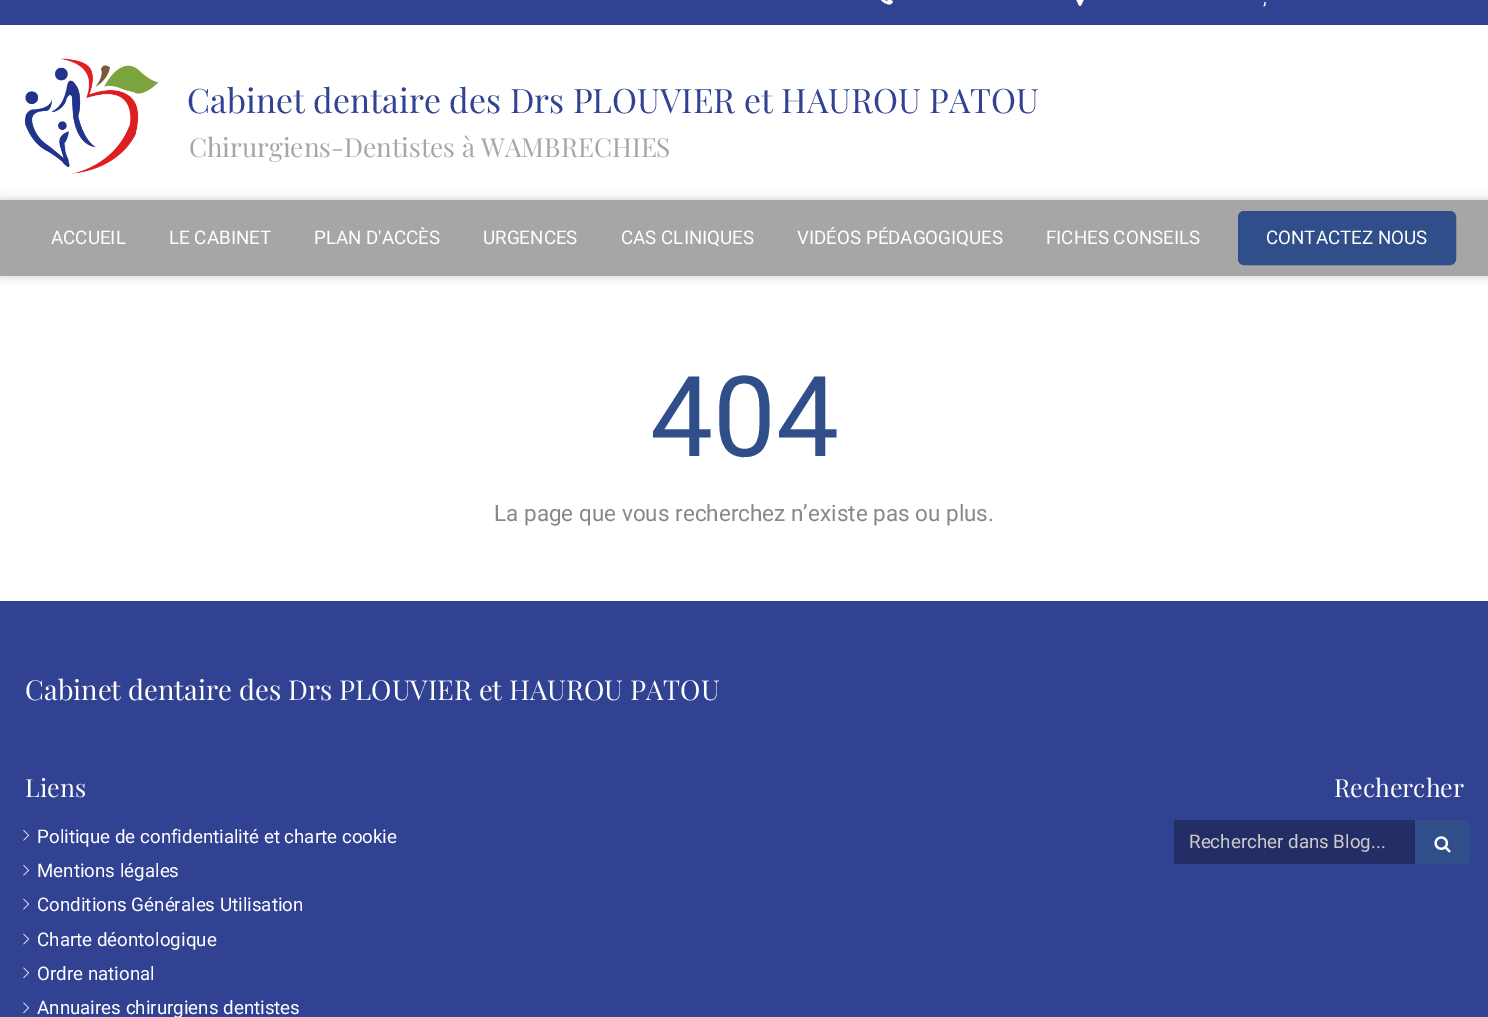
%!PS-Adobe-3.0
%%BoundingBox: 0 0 1488 1017
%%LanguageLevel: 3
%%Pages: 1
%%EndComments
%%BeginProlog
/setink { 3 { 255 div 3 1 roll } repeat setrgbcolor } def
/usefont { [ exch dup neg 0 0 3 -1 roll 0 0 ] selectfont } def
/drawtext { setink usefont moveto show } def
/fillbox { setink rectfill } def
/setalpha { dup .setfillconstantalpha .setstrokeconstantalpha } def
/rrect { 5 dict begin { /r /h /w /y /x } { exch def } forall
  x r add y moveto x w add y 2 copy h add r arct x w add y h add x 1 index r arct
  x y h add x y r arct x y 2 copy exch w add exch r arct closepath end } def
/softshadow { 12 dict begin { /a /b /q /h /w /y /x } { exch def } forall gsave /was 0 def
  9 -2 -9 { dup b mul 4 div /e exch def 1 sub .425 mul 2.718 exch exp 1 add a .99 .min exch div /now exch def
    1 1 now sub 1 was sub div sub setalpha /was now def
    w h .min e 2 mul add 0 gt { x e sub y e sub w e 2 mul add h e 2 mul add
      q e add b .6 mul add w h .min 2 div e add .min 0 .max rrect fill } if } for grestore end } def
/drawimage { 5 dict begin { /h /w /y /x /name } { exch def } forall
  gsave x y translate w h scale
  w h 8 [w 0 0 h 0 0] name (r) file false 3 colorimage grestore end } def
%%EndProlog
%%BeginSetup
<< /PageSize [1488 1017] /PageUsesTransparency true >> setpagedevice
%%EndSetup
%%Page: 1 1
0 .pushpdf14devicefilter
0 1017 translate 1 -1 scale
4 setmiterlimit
0 0 1488 1017 255 255 255 fillbox
0 0 1488 25 50 66 147 fillbox
(assets/img1.rgb) 880 0 13 5 drawimage
(assets/img2.rgb) 1076 0 8 6 drawimage
(,) 1263 4 /Roboto-Regular 19 255 255 255 drawtext
(assets/img3.rgb) 25 58 135 116 drawimage
(Cabinet dentaire des Drs PLOUVIER et HAUROU PATOU) 187 113 /PlayfairDisplay-Regular 33.75 50 66 147 drawtext
(Chirurgiens-Dentistes à WAMBRECHIES) 189 157 /PlayfairDisplay-Regular 26.25 166 166 166 drawtext
0 0 0 setink
0 200 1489 76 0 5 0.2 softshadow
0 200 1488 76 166 166 166 fillbox
(ACCUEIL) 51 244 /Roboto-Regular 18.75 255 255 255 drawtext
(LE CABINET) 169 244 /Roboto-Regular 18.75 255 255 255 drawtext
(PLAN D'ACCÈS) 314 244 /Roboto-Regular 18.75 255 255 255 drawtext
(URGENCES) 483 244 /Roboto-Regular 18.75 255 255 255 drawtext
(CAS CLINIQUES) 621 244 /Roboto-Regular 18.75 255 255 255 drawtext
(VIDÉOS PÉDAGOGIQUES) 797 244 /Roboto-Regular 18.75 255 255 255 drawtext
(FICHES CONSEILS) 1046 244 /Roboto-Regular 18.75 255 255 255 drawtext
48 78 138 setink
1240 213 214 50 4 rrect gsave fill grestore
4 setlinewidth
stroke
(CONTACTEZ NOUS) 1266 244 /Roboto-Regular 18.75 255 255 255 drawtext
(404) 650 456 /Roboto-Regular 112 48 78 138 drawtext
(La page que vous recherchez n’existe pas ou plus.) 494 521 /Roboto-Regular 22.5 136 136 136 drawtext
0 601 1488 416 50 66 147 fillbox
(Cabinet dentaire des Drs PLOUVIER et HAUROU PATOU) 25 700 /PlayfairDisplay-Regular 27.5 255 255 255 drawtext
(Liens) 25 797 /PlayfairDisplay-Regular 25 255 255 255 drawtext
(assets/img4.rgb) 23 830 6 11 drawimage
(Politique de confidentialité et charte cookie) 37 843 /Roboto-Regular 18.75 255 255 255 drawtext
(assets/img4.rgb) 23 865 6 11 drawimage
(Mentions légales) 37 877 /Roboto-Regular 18.75 255 255 255 drawtext
(assets/img5.rgb) 23 898 6 12 drawimage
(Conditions Générales Utilisation) 37 911 /Roboto-Regular 18.75 255 255 255 drawtext
(assets/img5.rgb) 23 933 6 12 drawimage
(Charte déontologique) 37 946 /Roboto-Regular 18.75 255 255 255 drawtext
(assets/img6.rgb) 23 967 6 12 drawimage
(Ordre national) 37 980 /Roboto-Regular 18.75 255 255 255 drawtext
(assets/img6.rgb) 23 1002 6 12 drawimage
(Annuaires chirurgiens dentistes) 37 1014 /Roboto-Regular 18.75 255 255 255 drawtext
(Rechercher) 1334 797 /PlayfairDisplay-Regular 25 255 255 255 drawtext
1174 820 241 44 35 46 103 fillbox
(Rechercher dans Blog...) 1189 848 /Roboto-Regular 18.75 204 204 204 drawtext
48 78 138 setink
1415 820 moveto 1464 820 lineto 1467.5 820 1470 822.5 1470 826 curveto 1470 858 lineto 1470 861.5 1467.5 864 1464 864 curveto 1415 864 lineto closepath fill
(assets/img7.rgb) 1434 836 17 17 drawimage
.poppdf14devicefilter showpage
%%EOF
